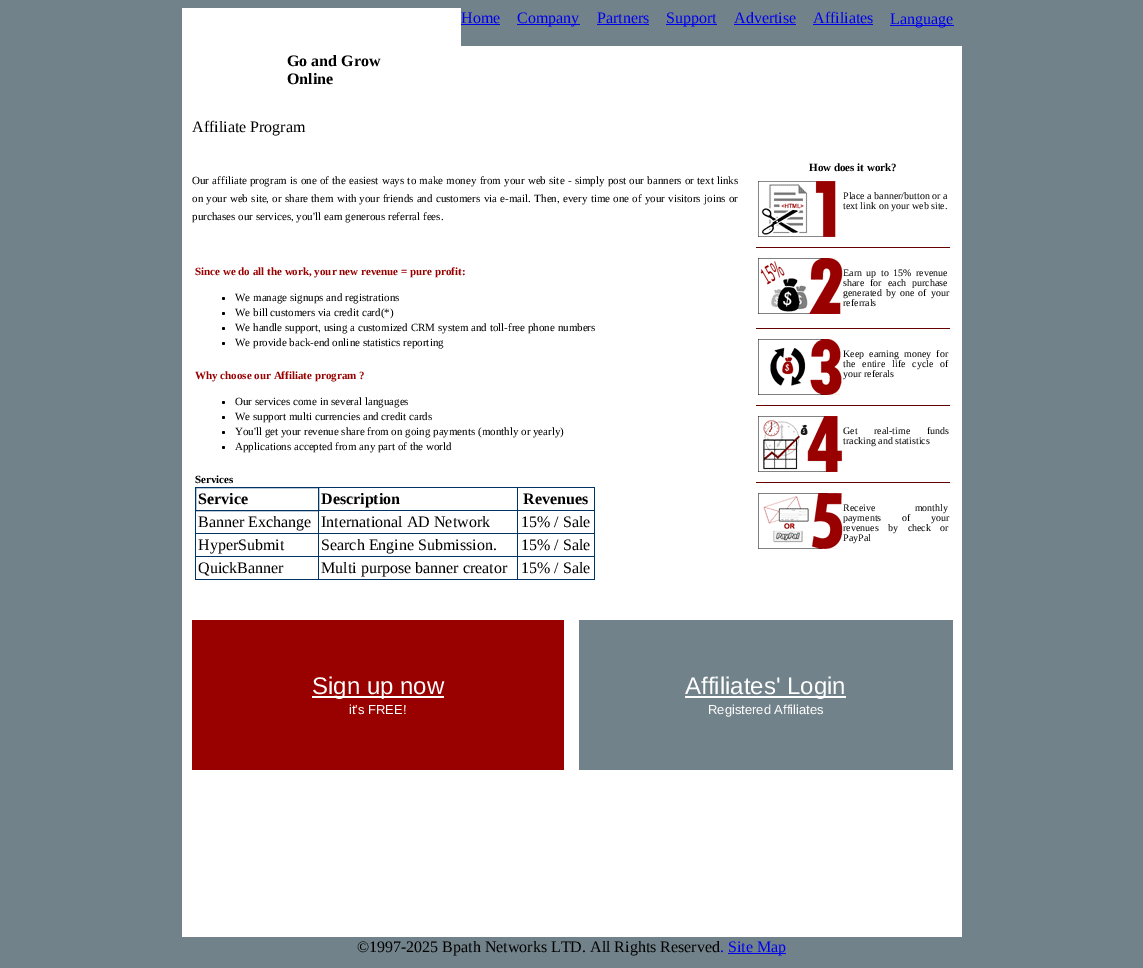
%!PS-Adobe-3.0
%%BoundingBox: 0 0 1143 968
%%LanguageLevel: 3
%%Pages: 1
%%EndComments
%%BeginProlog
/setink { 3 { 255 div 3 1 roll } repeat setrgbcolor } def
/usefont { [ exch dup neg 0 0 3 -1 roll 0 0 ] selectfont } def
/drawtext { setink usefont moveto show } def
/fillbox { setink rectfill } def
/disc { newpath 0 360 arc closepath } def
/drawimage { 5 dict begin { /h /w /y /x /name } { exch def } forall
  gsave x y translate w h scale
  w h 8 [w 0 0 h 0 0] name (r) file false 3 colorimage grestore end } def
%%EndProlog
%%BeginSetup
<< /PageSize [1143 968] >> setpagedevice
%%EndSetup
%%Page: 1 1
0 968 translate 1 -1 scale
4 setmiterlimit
0 0 1143 968 113 130 138 fillbox
182 8 780 929 255 255 255 fillbox
461 8 501 38 113 130 138 fillbox
(Home) 461 23 /LiberationSerif-Regular 16 0 0 238 drawtext
461 24 39 1 0 0 238 fillbox
517 24 63 1 0 0 238 fillbox
(Company) 517 23 /LiberationSerif-Regular 16 0 0 238 drawtext
(Partners) 597 23 /LiberationSerif-Regular 16 0 0 238 drawtext
597 24 52 1 0 0 238 fillbox
666 24 51 1 0 0 238 fillbox
(Support) 666 23 /LiberationSerif-Regular 16 0 0 238 drawtext
(Advertise) 734 23 /LiberationSerif-Regular 16 0 0 238 drawtext
734 24 62 1 0 0 238 fillbox
(Affiliates) 813 23 /LiberationSerif-Regular 16 0 0 238 drawtext
813 24 60 1 0 0 238 fillbox
890 25 64 1 0 0 238 fillbox
(Language) 890 24 /LiberationSerif-Regular 16 0 0 238 drawtext
(Go and Grow) 287 66 /LiberationSerif-Bold 16 0 0 0 drawtext
(Online) 287 84 /LiberationSerif-Bold 16 0 0 0 drawtext
(Affiliate Program) 192 132 /LiberationSerif-Regular 16 0 0 0 drawtext
/LiberationSerif-Regular 11 usefont
192 184 moveto 0.5 0 32 (Our affiliate program is one of the easiest ways to make money from your web site - simply post our banners or text links) widthshow
192 202 moveto 0.5 0 32 (on your web site, or share them with your friends and customers via e-mail. Then, every time one of your visitors joins or) widthshow
(purchases our services, you'll earn generous referral fees.) 192 220 /LiberationSerif-Regular 11 0 0 0 drawtext
(How does it work?) 809 171 /LiberationSerif-Bold 11 0 0 0 drawtext
(assets/img1.rgb) 758 181 78 56 drawimage
(Place a banner/button or a) 843 199 /LiberationSerif-Regular 10 0 0 0 drawtext
(text link on your web site.) 843 209 /LiberationSerif-Regular 10 0 0 0 drawtext
756 247 194 1 102 0 0 fillbox
(assets/img2.rgb) 758 258 85 56 drawimage
0 0 0 setink
843 276 moveto 2 0 32 (Earn up to 15% revenue) widthshow
843 286 moveto 3.5 0 32 (share for each purchase) widthshow
843 296 moveto 1.5 0 32 (generated by one of your) widthshow
(referrals) 843 306 /LiberationSerif-Regular 10 0 0 0 drawtext
756 328 194 1 102 0 0 fillbox
(assets/img3.rgb) 758 339 84 56 drawimage
0 0 0 setink
843 357 moveto 2.5 0 32 (Keep earning money for) widthshow
843 367 moveto 4.5 0 32 (the entire life cycle of) widthshow
(your referals) 843 377 /LiberationSerif-Regular 10 0 0 0 drawtext
756 405 194 1 102 0 0 fillbox
(assets/img4.rgb) 758 416 85 56 drawimage
0 0 0 setink
843 434 moveto 14 0 32 (Get real-time funds) widthshow
(tracking and statistics) 843 444 /LiberationSerif-Regular 10 0 0 0 drawtext
756 482 194 1 102 0 0 fillbox
(assets/img5.rgb) 758 493 85 56 drawimage
0 0 0 setink
843 511 moveto 37 0 32 (Receive monthly) widthshow
843 521 moveto 18 0 32 (payments of your) widthshow
843 531 moveto 7 0 32 (revenues by check or) widthshow
(PayPal) 843 541 /LiberationSerif-Regular 10 0 0 0 drawtext
(Since we do all the work, your new revenue = pure profit:) 195 275 /LiberationSerif-Bold 11 153 0 0 drawtext
0 0 0 setink
223.5 298.5 1.5 disc fill
(We manage signups and registrations) 235 301 /LiberationSerif-Regular 11 0 0 0 drawtext
223.5 313.5 1.5 disc fill
(We bill customers via credit card\(*\)) 235 316 /LiberationSerif-Regular 11 0 0 0 drawtext
223.5 328.5 1.5 disc fill
(We handle support, using a customized CRM system and toll-free phone numbers) 235 331 /LiberationSerif-Regular 11 0 0 0 drawtext
223.5 343.5 1.5 disc fill
(We provide back-end online statistics reporting) 235 346 /LiberationSerif-Regular 11 0 0 0 drawtext
(Why choose our Affiliate program ?) 195 379 /LiberationSerif-Bold 11 153 0 0 drawtext
0 0 0 setink
223.5 402.5 1.5 disc fill
(Our services come in several languages) 235 405 /LiberationSerif-Regular 11 0 0 0 drawtext
223.5 417.5 1.5 disc fill
(We support multi currencies and credit cards) 235 420 /LiberationSerif-Regular 11 0 0 0 drawtext
223.5 432.5 1.5 disc fill
(You'll get your revenue share from on going payments \(monthly or yearly\)) 235 435 /LiberationSerif-Regular 11 0 0 0 drawtext
223.5 447.5 1.5 disc fill
(Applications accepted from any part of the world) 235 450 /LiberationSerif-Regular 11 0 0 0 drawtext
(Services) 195 483 /LiberationSerif-Bold 11 0 0 0 drawtext
0 51 102 setink
195.5 487.5 123 23 rectstroke
(Service) 198 504 /LiberationSerif-Bold 16 0 0 0 drawtext
319 487 276 1 0 51 102 fillbox
517 487 1 93 0 51 102 fillbox
319 510 199 1 0 51 102 fillbox
(Description) 321 504 /LiberationSerif-Bold 16 0 0 0 drawtext
594 487 1 93 0 51 102 fillbox
518 510 77 1 0 51 102 fillbox
(Revenues) 523 504 /LiberationSerif-Bold 16 0 0 0 drawtext
318 511 1 69 0 51 102 fillbox
195 533 400 1 0 51 102 fillbox
195 511 1 23 0 51 102 fillbox
(Banner Exchange) 198 527 /LiberationSerif-Regular 16 0 0 0 drawtext
(International AD Network) 321 527 /LiberationSerif-Regular 16 0 0 0 drawtext
(15% / Sale) 521 527 /LiberationSerif-Regular 16 0 0 0 drawtext
195 556 400 1 0 51 102 fillbox
195 534 1 23 0 51 102 fillbox
(HyperSubmit) 198 550 /LiberationSerif-Regular 16 0 0 0 drawtext
(Search Engine Submission.) 321 550 /LiberationSerif-Regular 16 0 0 0 drawtext
(15% / Sale) 521 550 /LiberationSerif-Regular 16 0 0 0 drawtext
195 579 400 1 0 51 102 fillbox
195 557 1 23 0 51 102 fillbox
(QuickBanner) 198 573 /LiberationSerif-Regular 16 0 0 0 drawtext
(Multi purpose banner creator) 321 573 /LiberationSerif-Regular 16 0 0 0 drawtext
(15% / Sale) 521 573 /LiberationSerif-Regular 16 0 0 0 drawtext
192 620 372 150 153 0 0 fillbox
312 696 132 2 255 255 255 fillbox
(Sign up now) 312 694 /LiberationSans-Regular 24 255 255 255 drawtext
(it's FREE!) 349 714 /LiberationSans-Regular 13 255 255 255 drawtext
579 620 374 150 113 130 138 fillbox
685 696 161 2 255 255 255 fillbox
(Affiliates' Login) 685 694 /LiberationSans-Regular 24 255 255 255 drawtext
(Registered Affiliates) 708 714 /LiberationSans-Regular 13 255 255 255 drawtext
(©1997-2025 Bpath Networks LTD. All Rights Reserved) 357 952 /LiberationSerif-Regular 16 0 0 0 drawtext
(.) 720 952 /LiberationSerif-Regular 16 0 0 238 drawtext
728 953 58 1 0 0 238 fillbox
(Site Map) 728 952 /LiberationSerif-Regular 16 0 0 238 drawtext
showpage
%%EOF
